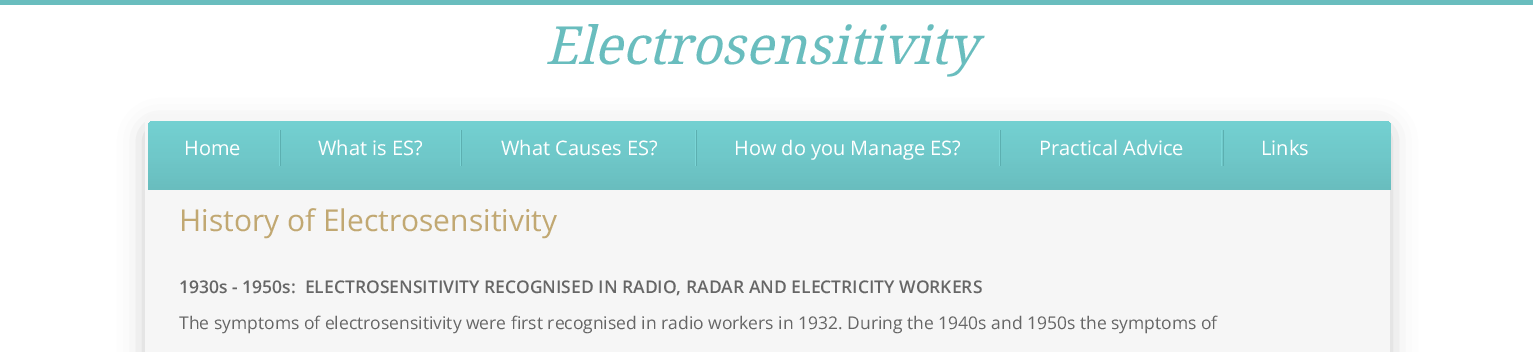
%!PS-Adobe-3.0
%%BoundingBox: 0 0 1533 352
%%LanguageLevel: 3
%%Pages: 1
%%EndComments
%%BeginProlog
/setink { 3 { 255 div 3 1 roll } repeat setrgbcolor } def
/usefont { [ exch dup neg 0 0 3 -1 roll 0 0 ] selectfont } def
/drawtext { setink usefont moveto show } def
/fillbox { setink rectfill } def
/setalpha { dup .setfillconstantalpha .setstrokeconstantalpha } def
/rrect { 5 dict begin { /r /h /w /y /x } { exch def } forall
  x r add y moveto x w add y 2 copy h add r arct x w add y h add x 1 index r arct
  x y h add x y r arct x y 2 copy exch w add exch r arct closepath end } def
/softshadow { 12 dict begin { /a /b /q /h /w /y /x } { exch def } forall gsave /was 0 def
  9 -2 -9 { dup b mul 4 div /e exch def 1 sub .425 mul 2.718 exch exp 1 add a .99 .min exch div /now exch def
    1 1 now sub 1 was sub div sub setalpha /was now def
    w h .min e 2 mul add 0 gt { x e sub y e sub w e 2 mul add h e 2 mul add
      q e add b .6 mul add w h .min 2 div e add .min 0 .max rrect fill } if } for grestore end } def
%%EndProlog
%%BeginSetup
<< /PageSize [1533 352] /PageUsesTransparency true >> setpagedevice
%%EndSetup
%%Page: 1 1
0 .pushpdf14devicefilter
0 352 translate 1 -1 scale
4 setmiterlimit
0 0 1533 352 105 189 190 fillbox
0 5 1533 347 255 255 255 fillbox
0 0 0 setink
145 126 1245 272 8 12.5 0.2 softshadow
246 246 246 setink
153 114 moveto 1382 114 lineto 1386.5 114 1390 117.5 1390 122 curveto 1390 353 lineto 145 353 lineto 145 122 lineto 145 117.5 148.5 114 153 114 curveto closepath fill
(Electrosensitivity) 545 64 /DroidSerif-Italic 52.5 105 189 190 drawtext
gsave 154 121 moveto 1385 121 lineto 1388.5 121 1391 123.5 1391 127 curveto 1391 190 lineto 148 190 lineto 148 127 lineto 148 123.5 150.5 121 154 121 curveto closepath clip newpath
<< /ShadingType 2 /ColorSpace /DeviceRGB /Coords [769 121 769 190] /Extend [true true] /Function << /FunctionType 3 /Domain [0 1] /Functions [<< /FunctionType 2 /Domain [0 1] /C0 [0.455 0.82 0.824] /C1 [0.435 0.784 0.788] /N 1 >> << /FunctionType 2 /Domain [0 1] /C0 [0.435 0.784 0.788] /C1 [0.412 0.741 0.745] /N 1 >>] /Bounds [0.51] /Encode [0 1 0 1] >> >> shfill grestore
279 130 1 36 123 214 215 fillbox
(Home) 184 155 /OpenSans-Regular 20 255 255 255 drawtext
460 130 1 36 123 214 215 fillbox
280 130 1 36 92 175 176 fillbox
(What is ES?) 318 155 /OpenSans-Regular 20 255 255 255 drawtext
695 130 1 36 123 214 215 fillbox
461 130 1 36 92 175 176 fillbox
(What Causes ES?) 501 155 /OpenSans-Regular 20 255 255 255 drawtext
999 130 1 36 123 214 215 fillbox
696 130 1 36 92 175 176 fillbox
(How do you Manage ES?) 734 155 /OpenSans-Regular 20 255 255 255 drawtext
1221 130 1 36 123 214 215 fillbox
1000 130 1 36 92 175 176 fillbox
(Practical Advice) 1039 155 /OpenSans-Regular 20 255 255 255 drawtext
1223 130 1 36 92 175 176 fillbox
(Links) 1261 155 /OpenSans-Regular 20 255 255 255 drawtext
(History of Electrosensitivity) 179 231 /OpenSans-Regular 30 193 168 114 drawtext
(1930s - 1950s:  ELECTROSENSITIVITY RECOGNISED IN RADIO, RADAR AND ELECTRICITY WORKERS) 179 293 /OpenSans-SemiBold 17.5 102 102 102 drawtext
(The symptoms of electrosensitivity were first recognised in radio workers in 1932. During the 1940s and 1950s the symptoms of) 179 329 /OpenSans-Regular 17.5 102 102 102 drawtext
.poppdf14devicefilter showpage
%%EOF
